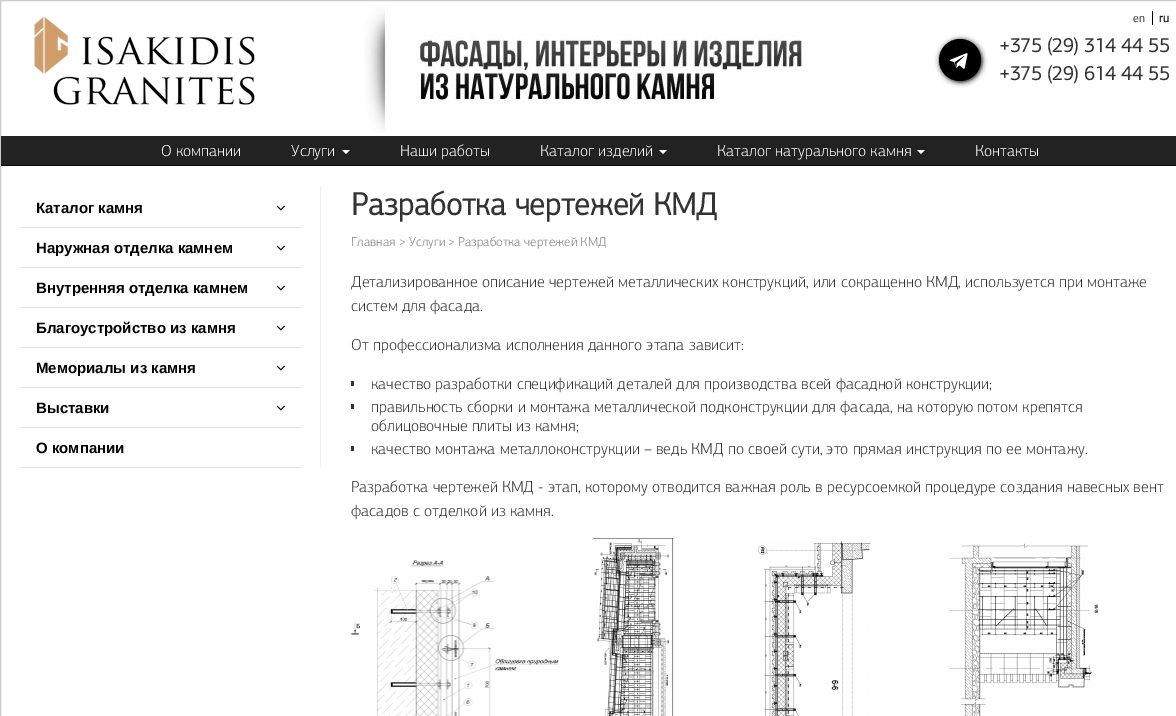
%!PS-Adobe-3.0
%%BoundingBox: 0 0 1176 716
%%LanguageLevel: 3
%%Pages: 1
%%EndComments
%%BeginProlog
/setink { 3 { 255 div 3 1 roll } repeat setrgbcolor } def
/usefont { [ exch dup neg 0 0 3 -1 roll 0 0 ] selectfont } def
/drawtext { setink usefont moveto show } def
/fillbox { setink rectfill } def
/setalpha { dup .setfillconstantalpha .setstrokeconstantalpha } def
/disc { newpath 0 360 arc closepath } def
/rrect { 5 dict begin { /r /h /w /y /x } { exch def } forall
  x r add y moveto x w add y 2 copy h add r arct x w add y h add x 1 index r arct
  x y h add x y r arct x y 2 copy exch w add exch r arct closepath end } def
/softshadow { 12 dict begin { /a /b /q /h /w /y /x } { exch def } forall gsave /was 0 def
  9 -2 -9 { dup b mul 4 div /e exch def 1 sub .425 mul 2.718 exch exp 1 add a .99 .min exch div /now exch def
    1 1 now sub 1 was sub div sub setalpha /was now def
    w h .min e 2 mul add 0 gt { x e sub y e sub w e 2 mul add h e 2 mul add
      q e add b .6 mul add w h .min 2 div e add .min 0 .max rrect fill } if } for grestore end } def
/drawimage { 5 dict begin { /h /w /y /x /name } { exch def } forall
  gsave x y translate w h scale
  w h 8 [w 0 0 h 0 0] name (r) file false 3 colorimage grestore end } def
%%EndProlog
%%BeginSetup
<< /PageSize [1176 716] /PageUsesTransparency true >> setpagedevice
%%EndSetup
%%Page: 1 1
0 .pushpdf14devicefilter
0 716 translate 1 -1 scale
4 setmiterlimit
0 0 1176 716 255 255 255 fillbox
204 204 204 setink
0.5 0.5 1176 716 rectstroke
(assets/img1.rgb) 34 17 221 88 drawimage
(assets/img2.rgb) 364 7 442 126 drawimage
1152 11 1 14 0 0 0 fillbox
(en) 1133 22 /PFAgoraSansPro-Light 12 0 0 0 drawtext
(ru) 1159 22 /PFAgoraSansPro-Bold 12 0 0 0 drawtext
940 40 42 42 21 2.5 1 softshadow
960 60 21 disc fill
(assets/img3.rgb) 949 53 19 16 drawimage
(+375 \(29\) 314 44 55) 999 52 /PFAgoraSansPro-Bold 20 51 51 51 drawtext
(+375 \(29\) 614 44 55) 999 80 /PFAgoraSansPro-Bold 20 51 51 51 drawtext
1 136 1175 29 34 34 34 fillbox
1 165 1175 1 8 8 8 fillbox
(О компании) 161 156 /PFAgoraSansPro-Light 16 255 255 255 drawtext
(Услуги) 291 156 /PFAgoraSansPro-Light 16 255 255 255 drawtext
342 150 moveto 350 150 lineto 346 154 lineto closepath fill
(Наши работы) 400 156 /PFAgoraSansPro-Light 16 255 255 255 drawtext
(Каталог изделий) 540 156 /PFAgoraSansPro-Light 16 255 255 255 drawtext
659 150 moveto 667 150 lineto 663 154 lineto closepath fill
(Каталог натурального камня) 717 156 /PFAgoraSansPro-Light 16 255 255 255 drawtext
917 150 moveto 925 150 lineto 921 154 lineto closepath fill
(Контакты) 975 156 /PFAgoraSansPro-Light 16 255 255 255 drawtext
320 186 1 282 240 240 240 fillbox
21 227 280 1 224 224 224 fillbox
(Каталог камня) 36 213 /LiberationSans-Bold 15 0 0 0 drawtext
(assets/img4.rgb) 276 205 9 6 drawimage
21 267 280 1 224 224 224 fillbox
(Наружная отделка камнем) 36 253 /LiberationSans-Bold 15 0 0 0 drawtext
(assets/img4.rgb) 276 245 9 6 drawimage
21 307 280 1 224 224 224 fillbox
(Внутренняя отделка камнем) 36 293 /LiberationSans-Bold 15 0 0 0 drawtext
(assets/img4.rgb) 276 285 9 6 drawimage
21 347 280 1 224 224 224 fillbox
(Благоустройство из камня) 36 333 /LiberationSans-Bold 15 0 0 0 drawtext
(assets/img4.rgb) 276 325 9 6 drawimage
21 387 280 1 224 224 224 fillbox
(Мемориалы из камня) 36 373 /LiberationSans-Bold 15 0 0 0 drawtext
(assets/img4.rgb) 276 365 9 6 drawimage
21 427 280 1 224 224 224 fillbox
(Выставки) 36 413 /LiberationSans-Bold 15 0 0 0 drawtext
(assets/img4.rgb) 276 405 9 6 drawimage
21 467 280 1 224 224 224 fillbox
(О компании) 36 453 /LiberationSans-Bold 15 0 0 0 drawtext
(Разработка чертежей КМД) 351 215 /PFAgoraSansPro-Bold 32 51 51 51 drawtext
(Главная >) 351 246 /PFAgoraSansPro-Light 13 128 128 128 drawtext
(Услуги >) 409 246 /PFAgoraSansPro-Light 13 128 128 128 drawtext
(Разработка чертежей КМД) 458 246 /PFAgoraSansPro-Light 13 128 128 128 drawtext
(Детализированное описание чертежей металлических конструкций, или сокращенно КМД, используется при монтаже) 351 287 /PFAgoraSansPro-Light 16 51 51 51 drawtext
(систем для фасада.) 351 311 /PFAgoraSansPro-Light 16 51 51 51 drawtext
(От профессионализма исполнения данного этапа зависит:) 351 350 /PFAgoraSansPro-Light 16 51 51 51 drawtext
351 381 3 5 51 51 51 fillbox
(качество разработки спецификаций деталей для производства всей фасадной конструкции;) 371 389 /PFAgoraSansPro-Light 16 51 51 51 drawtext
351 404 3 5 51 51 51 fillbox
(правильность сборки и монтажа металлической подконструкции для фасада, на которую потом крепятся) 371 412 /PFAgoraSansPro-Light 16 51 51 51 drawtext
(облицовочные плиты из камня;) 371 431 /PFAgoraSansPro-Light 16 51 51 51 drawtext
351 446 3 5 51 51 51 fillbox
(качество монтажа металлоконструкции – ведь КМД по своей сути, это прямая инструкция по ее монтажу.) 371 454 /PFAgoraSansPro-Light 16 51 51 51 drawtext
(Разработка чертежей КМД - этап, которому отводится важная роль в ресурсоемкой процедуре создания навесных вент) 351 492 /PFAgoraSansPro-Light 16 51 51 51 drawtext
(фасадов с отделкой из камня.) 351 516 /PFAgoraSansPro-Light 16 51 51 51 drawtext
(assets/img5.rgb) 351 560 208 156 drawimage
(assets/img6.rgb) 593 538 81 178 drawimage
(assets/img7.rgb) 758 540 113 176 drawimage
(assets/img8.rgb) 949 543 149 173 drawimage
.poppdf14devicefilter showpage
%%EOF
